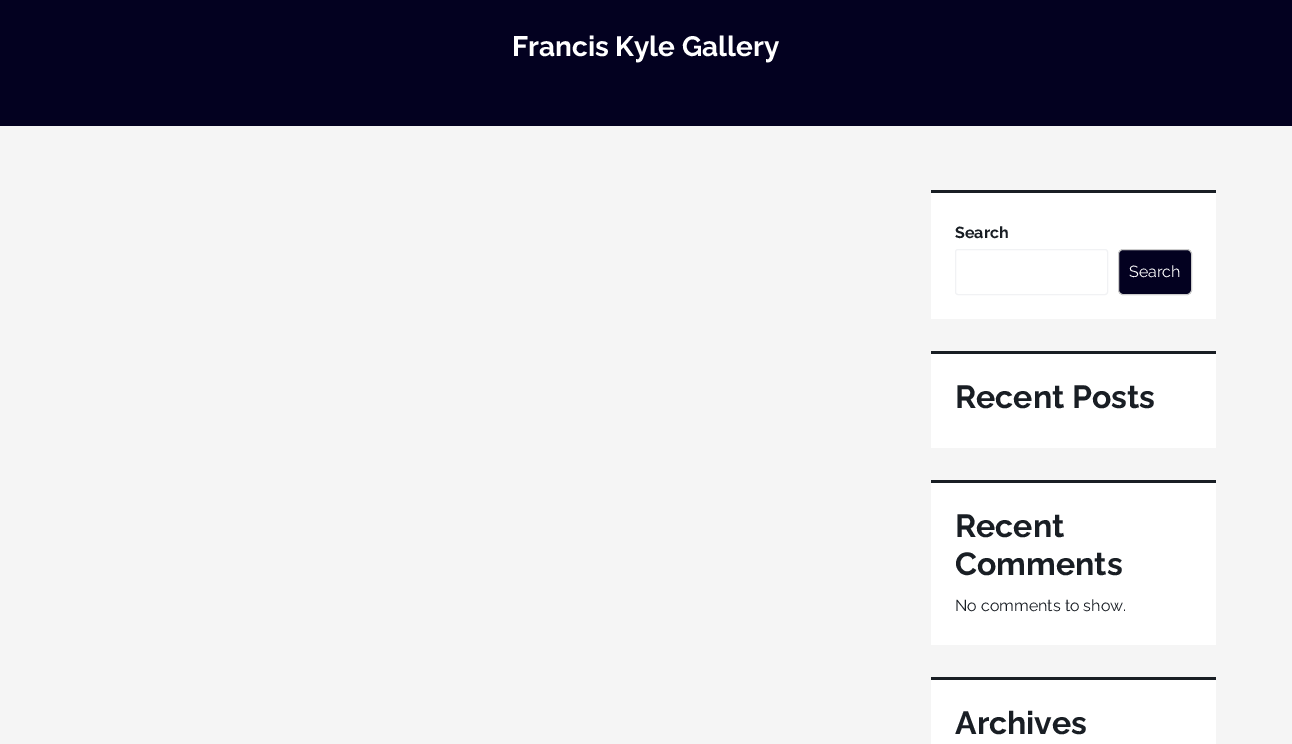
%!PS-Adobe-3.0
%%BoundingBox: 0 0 1292 744
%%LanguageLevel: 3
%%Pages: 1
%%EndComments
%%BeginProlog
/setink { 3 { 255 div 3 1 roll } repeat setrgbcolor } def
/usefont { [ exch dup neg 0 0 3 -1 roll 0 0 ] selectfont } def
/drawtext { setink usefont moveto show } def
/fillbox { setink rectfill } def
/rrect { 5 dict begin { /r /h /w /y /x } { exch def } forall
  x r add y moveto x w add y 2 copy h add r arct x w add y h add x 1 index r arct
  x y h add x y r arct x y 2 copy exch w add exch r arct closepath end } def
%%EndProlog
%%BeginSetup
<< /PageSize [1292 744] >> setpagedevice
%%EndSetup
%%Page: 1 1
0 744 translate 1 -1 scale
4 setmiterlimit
0 0 1292 744 245 245 245 fillbox
0 0 1292 126 3 1 32 fillbox
(Francis Kyle Gallery) 512 56 /Raleway-Bold 28 255 255 255 drawtext
931 193 285 126 255 255 255 fillbox
931 190 285 3 25 30 36 fillbox
(Search) 955 238 /Raleway-Bold 16 25 30 36 drawtext
241 242 244 setink
955.5 249.5 152 45 2.5 rrect stroke
3 1 32 setink
1118.5 249.5 73 45 4.5 rrect gsave fill grestore
204 204 204 setink
stroke
(Search) 1129 277 /Raleway-Regular 16 255 255 255 drawtext
931 354 285 94 255 255 255 fillbox
931 351 285 3 25 30 36 fillbox
(Recent Posts) 955 408 /Raleway-Bold 32 25 30 36 drawtext
931 483 285 162 255 255 255 fillbox
931 480 285 3 25 30 36 fillbox
(Recent) 955 537 /Raleway-Bold 32 25 30 36 drawtext
(Comments) 955 575 /Raleway-Bold 32 25 30 36 drawtext
(No comments to show.) 955 611 /Raleway-Regular 16 25 30 36 drawtext
931 680 285 64 255 255 255 fillbox
931 677 285 3 25 30 36 fillbox
(Archives) 955 734 /Raleway-Bold 32 25 30 36 drawtext
showpage
%%EOF
